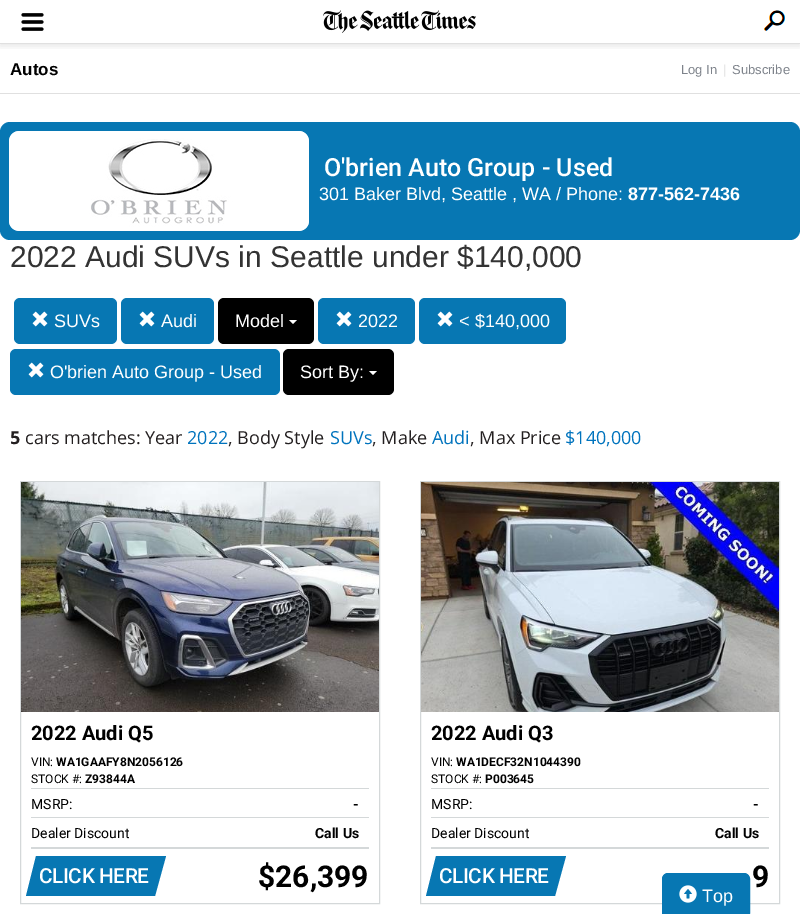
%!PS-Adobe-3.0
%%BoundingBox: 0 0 800 914
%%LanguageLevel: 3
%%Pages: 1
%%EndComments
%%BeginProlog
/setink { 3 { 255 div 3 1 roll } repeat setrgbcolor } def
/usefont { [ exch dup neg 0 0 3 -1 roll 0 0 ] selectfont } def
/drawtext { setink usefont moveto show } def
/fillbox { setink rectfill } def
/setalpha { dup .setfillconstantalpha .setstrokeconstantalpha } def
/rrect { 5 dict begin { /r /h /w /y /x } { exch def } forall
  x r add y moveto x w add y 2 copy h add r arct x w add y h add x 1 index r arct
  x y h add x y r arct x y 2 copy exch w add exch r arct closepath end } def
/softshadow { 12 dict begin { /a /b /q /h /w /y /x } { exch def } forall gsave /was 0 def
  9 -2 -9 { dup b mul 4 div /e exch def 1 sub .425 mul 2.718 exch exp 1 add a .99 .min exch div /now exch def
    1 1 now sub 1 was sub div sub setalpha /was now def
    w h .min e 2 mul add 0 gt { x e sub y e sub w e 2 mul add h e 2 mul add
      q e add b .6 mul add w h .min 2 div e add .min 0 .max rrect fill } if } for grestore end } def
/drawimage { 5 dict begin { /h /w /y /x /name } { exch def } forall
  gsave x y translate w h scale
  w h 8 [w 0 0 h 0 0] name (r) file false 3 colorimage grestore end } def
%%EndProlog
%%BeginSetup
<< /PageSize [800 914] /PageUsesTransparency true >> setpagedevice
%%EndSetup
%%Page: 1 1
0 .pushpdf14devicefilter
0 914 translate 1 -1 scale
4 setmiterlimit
0 0 800 914 255 255 255 fillbox
gsave
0 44 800 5 rectclip
0 0 0 setink
0 2 800 44 0 3.5 0.1 softshadow
grestore
0 43 800 1 224 224 224 fillbox
(assets/img1.rgb) 21 13 23 18 drawimage
(assets/img2.rgb) 323 10 153 23 drawimage
(assets/img3.rgb) 764 10 21 21 drawimage
0 93 800 1 224 224 224 fillbox
(Autos) 10 75 /LiberationSans-Bold 17 0 0 0 drawtext
(Log In) 681 74 /LiberationSans-Regular 13 126 131 139 drawtext
(|) 723 74 /LiberationSans-Regular 13 224 224 224 drawtext
(Subscribe) 732 74 /LiberationSans-Regular 13 126 131 139 drawtext
7 119 179 setink
0 122 800 118 10 rrect fill
255 255 255 setink
9 131 300 100 10 rrect fill
(assets/img4.rgb) 9 131 300 100 drawimage
(O'brien Auto Group - Used) 324 176 /Roboto-Medium 25 255 255 255 drawtext
(301 Baker Blvd, Seattle , WA / Phone:) 319 200 /LiberationSans-Regular 18 255 255 255 drawtext
(877-562-7436) 628 200 /LiberationSans-Bold 18 255 255 255 drawtext
(2022 Audi SUVs in Seattle under $140,000) 10 267 /LiberationSans-Regular 30 51 51 51 drawtext
7 119 179 setink
14 298 103 46 6 rrect fill
(assets/img5.rgb) 32 311 16 16 drawimage
(SUVs) 54 327 /LiberationSans-Regular 18 255 255 255 drawtext
7 119 179 setink
121 298 93 46 6 rrect fill
(assets/img5.rgb) 139 311 16 16 drawimage
(Audi) 161 327 /LiberationSans-Regular 18 255 255 255 drawtext
0 0 0 setink
218 298 96 46 6 rrect fill
(Model) 235 327 /LiberationSans-Regular 18 255 255 255 drawtext
289 320 moveto 297 320 lineto 293 324 lineto closepath fill
7 119 179 setink
318 298 97 46 6 rrect fill
(assets/img5.rgb) 336 311 16 16 drawimage
(2022) 358 327 /LiberationSans-Regular 18 255 255 255 drawtext
7 119 179 setink
419 298 147 46 6 rrect fill
(assets/img5.rgb) 437 311 16 16 drawimage
(< $140,000) 459 327 /LiberationSans-Regular 18 255 255 255 drawtext
7 119 179 setink
10 349 270 46 6 rrect fill
(assets/img5.rgb) 28 362 16 16 drawimage
(O'brien Auto Group - Used) 50 378 /LiberationSans-Regular 18 255 255 255 drawtext
0 0 0 setink
283 349 111 46 6 rrect fill
(Sort By:) 300 378 /LiberationSans-Regular 18 255 255 255 drawtext
369 371 moveto 377 371 lineto 373 375 lineto closepath fill
(5) 10 444 /OpenSans-Bold 18 35 31 32 drawtext
(cars matches: Year) 25 444 /OpenSans-Regular 18 35 31 32 drawtext
(2022) 187 444 /OpenSans-Regular 18 0 115 189 drawtext
(, Body Style) 228 444 /OpenSans-Regular 18 35 31 32 drawtext
(SUVs) 330 444 /OpenSans-Regular 18 0 115 189 drawtext
(, Make) 372 444 /OpenSans-Regular 18 35 31 32 drawtext
(Audi) 432 444 /OpenSans-Regular 18 0 115 189 drawtext
(, Max Price) 470 444 /OpenSans-Regular 18 35 31 32 drawtext
($140,000) 565 444 /OpenSans-Regular 18 0 115 189 drawtext
212 216 217 setink
20.5 481.5 359 422 rectstroke
(assets/img6.rgb) 21 482 358 230 drawimage
(2022 Audi Q5) 31 740 /Roboto-Bold 20 0 0 0 drawtext
(VIN:) 31 766 /Roboto-Regular 12 0 0 0 drawtext
(WA1GAAFY8N2056126) 56 766 /Roboto-Bold 12 0 0 0 drawtext
(STOCK #:) 31 783 /Roboto-Regular 12 0 0 0 drawtext
(Z93844A) 85 783 /Roboto-Bold 12 0 0 0 drawtext
31 788 338 1 212 216 217 fillbox
31 817 338 1 212 216 217 fillbox
(MSRP:) 31 809 /Roboto-Regular 14 0 0 0 drawtext
(-) 353 809 /Roboto-Bold 14 0 0 0 drawtext
31 847 338 2 212 216 217 fillbox
(Dealer Discount) 31 838 /Roboto-Regular 14 0 0 0 drawtext
(Call Us) 315 838 /Roboto-Bold 14 0 0 0 drawtext
7 119 179 setink
36 856 moveto 166 856 lineto 155 896 lineto 26 896 lineto closepath fill
/Roboto-Medium 20.75 usefont
255 255 255 setink
39 883 moveto -0.4 0 (CLICK HERE) ashow
($26,399) 258 887 /Roboto-Bold 30 0 0 0 drawtext
212 216 217 setink
420.5 481.5 359 422 rectstroke
(assets/img7.rgb) 421 482 358 230 drawimage
(2022 Audi Q3) 431 740 /Roboto-Bold 20 0 0 0 drawtext
(VIN:) 431 766 /Roboto-Regular 12 0 0 0 drawtext
(WA1DECF32N1044390) 456 766 /Roboto-Bold 12 0 0 0 drawtext
(STOCK #:) 431 783 /Roboto-Regular 12 0 0 0 drawtext
(P003645) 485 783 /Roboto-Bold 12 0 0 0 drawtext
431 788 338 1 212 216 217 fillbox
431 817 338 1 212 216 217 fillbox
(MSRP:) 431 809 /Roboto-Regular 14 0 0 0 drawtext
(-) 753 809 /Roboto-Bold 14 0 0 0 drawtext
431 847 338 2 212 216 217 fillbox
(Dealer Discount) 431 838 /Roboto-Regular 14 0 0 0 drawtext
(Call Us) 715 838 /Roboto-Bold 14 0 0 0 drawtext
7 119 179 setink
436 856 moveto 566 856 lineto 555 896 lineto 426 896 lineto closepath fill
/Roboto-Medium 20.75 usefont
255 255 255 setink
439 883 moveto -0.4 0 (CLICK HERE) ashow
(9) 752 887 /Roboto-Bold 30 0 0 0 drawtext
7 119 179 setink
662.5 873.5 87 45 5.5 rrect gsave fill grestore
stroke
(assets/img8.rgb) 679 885 18 18 drawimage
(Top) 702 902 /LiberationSans-Regular 18 255 255 255 drawtext
.poppdf14devicefilter showpage
%%EOF
